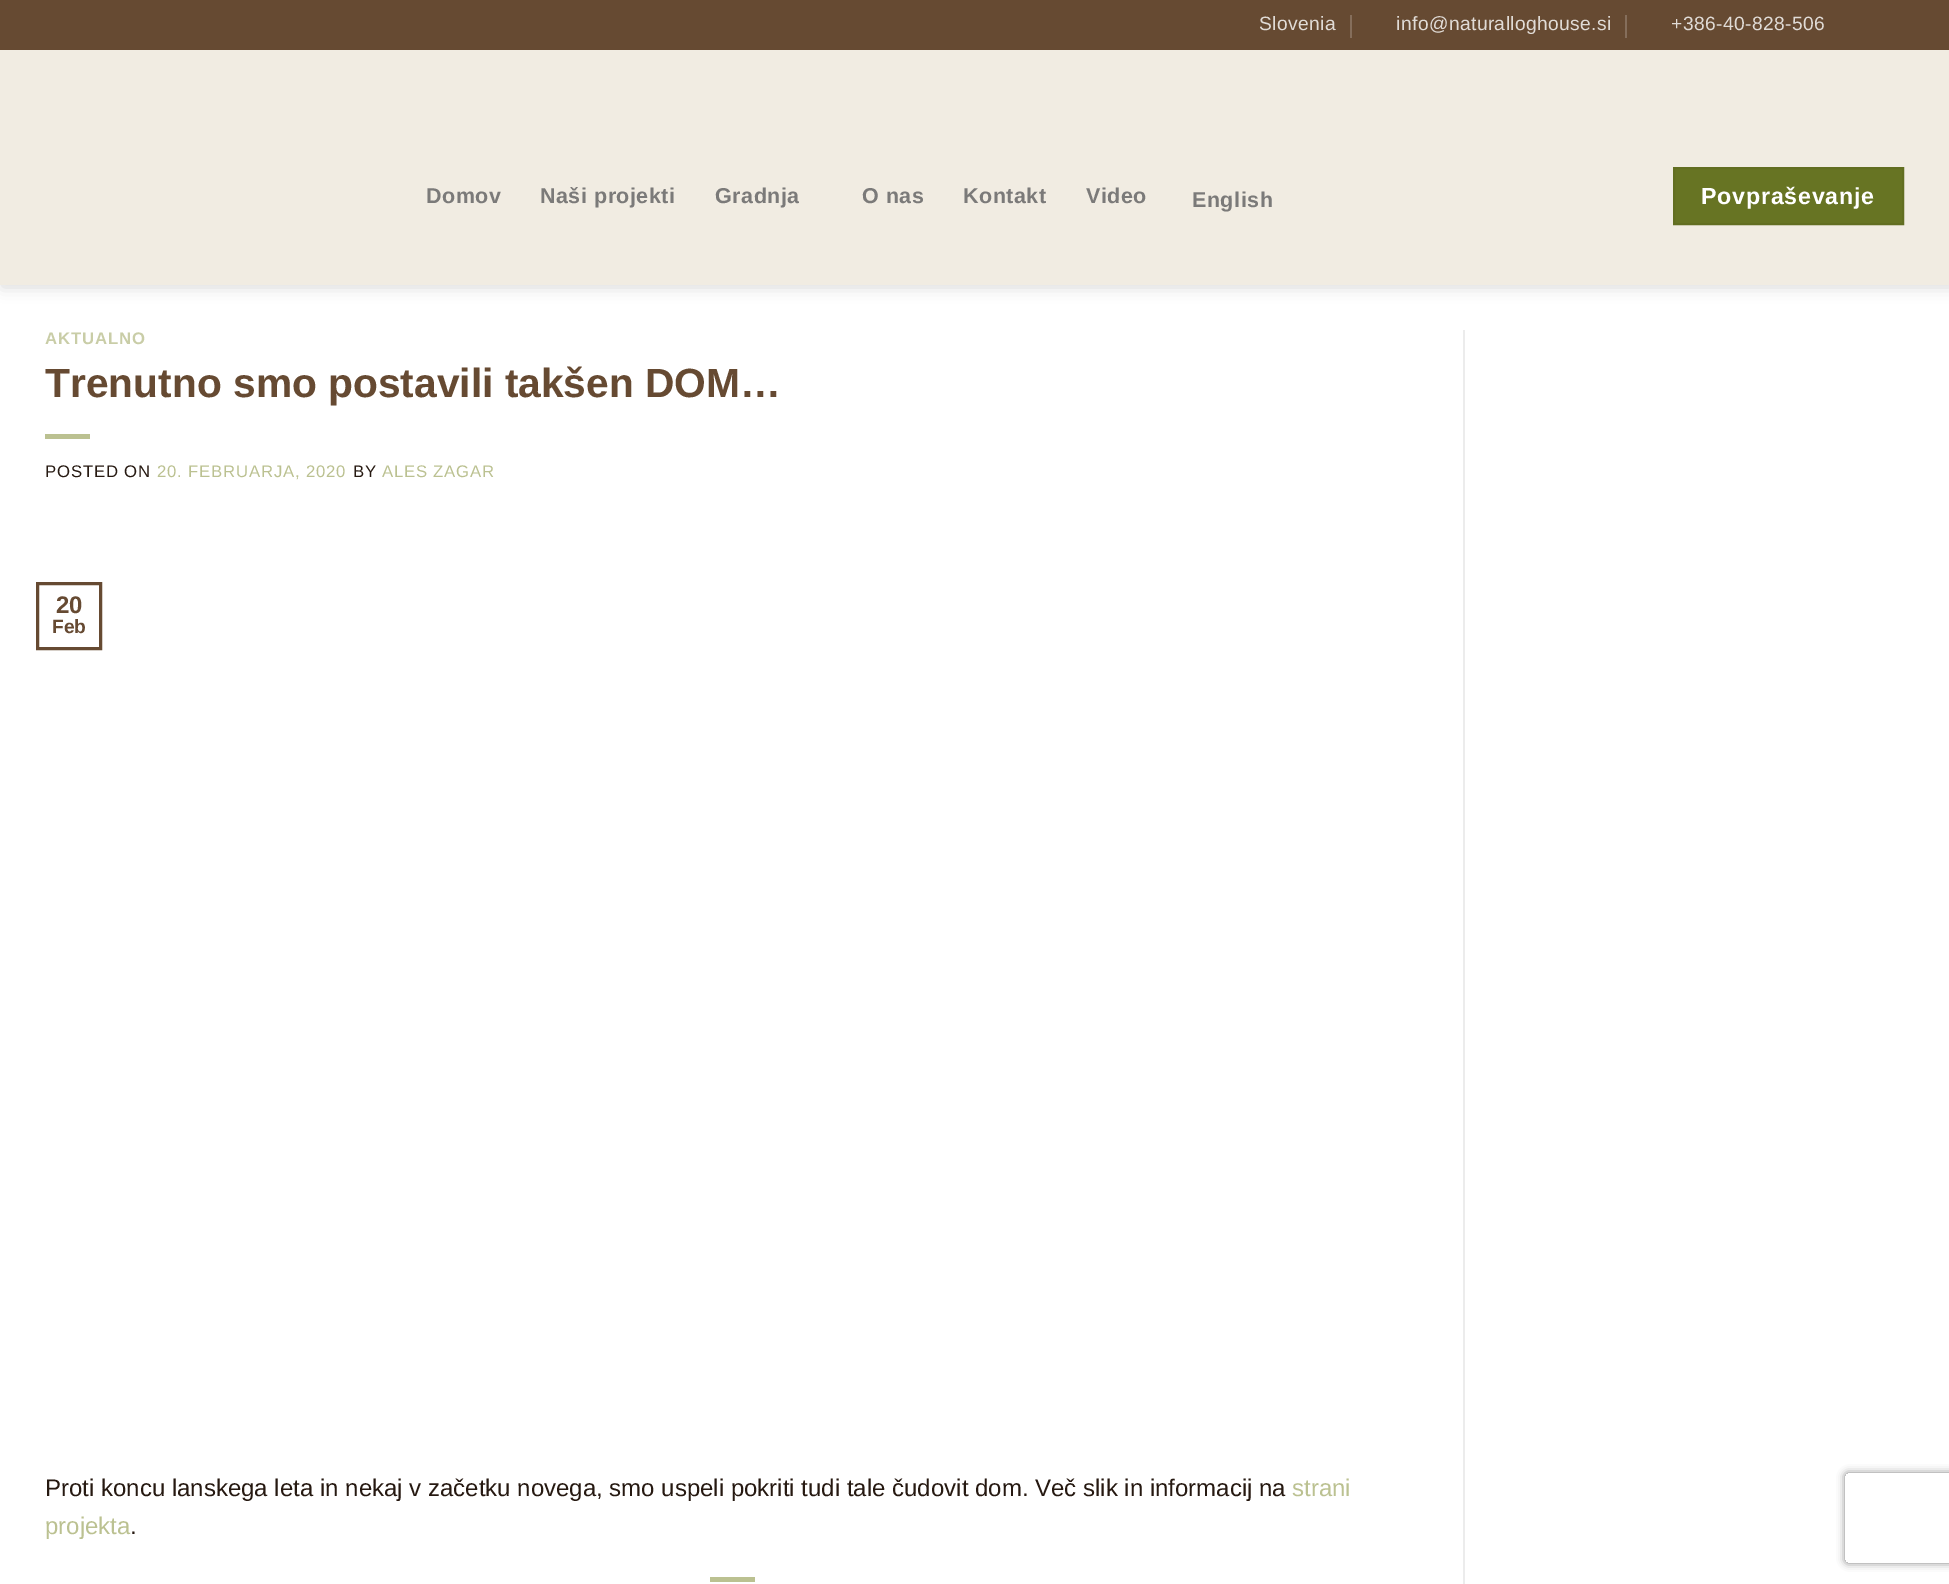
%!PS-Adobe-3.0
%%BoundingBox: 0 0 1949 1584
%%LanguageLevel: 3
%%Pages: 1
%%EndComments
%%BeginProlog
/setink { 3 { 255 div 3 1 roll } repeat setrgbcolor } def
/usefont { [ exch dup neg 0 0 3 -1 roll 0 0 ] selectfont } def
/drawtext { setink usefont moveto show } def
/fillbox { setink rectfill } def
/setalpha { dup .setfillconstantalpha .setstrokeconstantalpha } def
/rrect { 5 dict begin { /r /h /w /y /x } { exch def } forall
  x r add y moveto x w add y 2 copy h add r arct x w add y h add x 1 index r arct
  x y h add x y r arct x y 2 copy exch w add exch r arct closepath end } def
/softshadow { 12 dict begin { /a /b /q /h /w /y /x } { exch def } forall gsave /was 0 def
  9 -2 -9 { dup b mul 4 div /e exch def 1 sub .425 mul 2.718 exch exp 1 add a .99 .min exch div /now exch def
    1 1 now sub 1 was sub div sub setalpha /was now def
    w h .min e 2 mul add 0 gt { x e sub y e sub w e 2 mul add h e 2 mul add
      q e add b .6 mul add w h .min 2 div e add .min 0 .max rrect fill } if } for grestore end } def
%%EndProlog
%%BeginSetup
<< /PageSize [1949 1584] /PageUsesTransparency true >> setpagedevice
%%EndSetup
%%Page: 1 1
0 .pushpdf14devicefilter
0 1584 translate 1 -1 scale
4 setmiterlimit
0 0 1949 1584 255 255 255 fillbox
0 0 0 setink
2 2 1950 285 0 7.5 0.15 softshadow
0 0 1949 50 102 74 50 fillbox
/LiberationSans-Regular 19.25 usefont
224 219 214 setink
1259 30 moveto 0.4 0 (Slovenia) ashow
1350 15 2 23 133 110 91 fillbox
224 219 214 setink
1396 30 moveto 0.4 0 (info@naturalloghouse.si) ashow
1625 15 2 23 133 110 91 fillbox
224 219 214 setink
1671 30 moveto 0.4 0 (+386-40-828-506) ashow
0 50 1949 235 241 236 226 fillbox
/LiberationSans-Bold 21.5 usefont
123 122 121 setink
426 203 moveto 0.5 0 (Domov) ashow
540 203 moveto 0.5 0 (Naši projekti) ashow
715 203 moveto 0.5 0 (Gradnja) ashow
862 203 moveto 0.5 0 (O nas) ashow
963 203 moveto 0.5 0 (Kontakt) ashow
1086 203 moveto 0.5 0 (Video) ashow
1192 207 moveto 0.5 0 (English) ashow
103 116 35 setink
1674 168 moveto 1903 168 lineto 1903 224 lineto 1674 224 lineto closepath gsave fill grestore
98 110 33 setink
2 setlinewidth
stroke
/LiberationSans-Bold 23.25 usefont
255 255 255 setink
1701 204 moveto 0.75 0 (Povpraševanje) ashow
/LiberationSans-Bold 16.75 usefont
201 205 167 setink
45 344 moveto 0.8 0 (AKTUALNO) ashow
(Trenutno smo postavili takšen DOM…) 45 397 /LiberationSans-Bold 40.75 102 74 50 drawtext
45 434 45 5 187 193 145 fillbox
/LiberationSans-Regular 16.75 usefont
38 25 17 setink
45 477 moveto 0.8 0 (POSTED ON) ashow
187 193 145 setink
157 477 moveto 0.8 0 (20. FEBRUARJA, 2020) ashow
38 25 17 setink
353 477 moveto 0.8 0 (BY) ashow
187 193 145 setink
382 477 moveto 0.8 0 (ALES ZAGAR) ashow
102 74 50 setink
3 setlinewidth
37.5 583.5 63 65 rectstroke
(20) 56 613 /LiberationSans-Bold 24 102 74 50 drawtext
(Feb) 52 633 /LiberationSans-Bold 19.25 102 74 50 drawtext
(Proti koncu lanskega leta in nekaj v začetku novega, smo uspeli pokriti tudi tale čudovit dom. Več slik in informacij na) 45 1496 /LiberationSans-Regular 24 38 25 17 drawtext
(strani) 1292 1496 /LiberationSans-Regular 24 187 193 145 drawtext
(projekta) 45 1534 /LiberationSans-Regular 24 187 193 145 drawtext
(.) 130 1534 /LiberationSans-Regular 24 38 25 17 drawtext
710 1577 45 5 187 193 145 fillbox
1463 330 2 1254 236 236 236 fillbox
gsave
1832 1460 moveto 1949 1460 lineto 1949 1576 lineto 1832 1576 lineto closepath 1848 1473 moveto 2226 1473 lineto 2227.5 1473 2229 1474.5 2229 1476 curveto 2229 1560 lineto 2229 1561.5 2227.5 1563 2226 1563 curveto 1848 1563 lineto 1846.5 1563 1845 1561.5 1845 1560 curveto 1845 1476 lineto 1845 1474.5 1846.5 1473 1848 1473 curveto closepath eoclip newpath
128 128 128 setink
1845 1473 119 90 3 4 1 softshadow
grestore
.poppdf14devicefilter showpage
%%EOF
